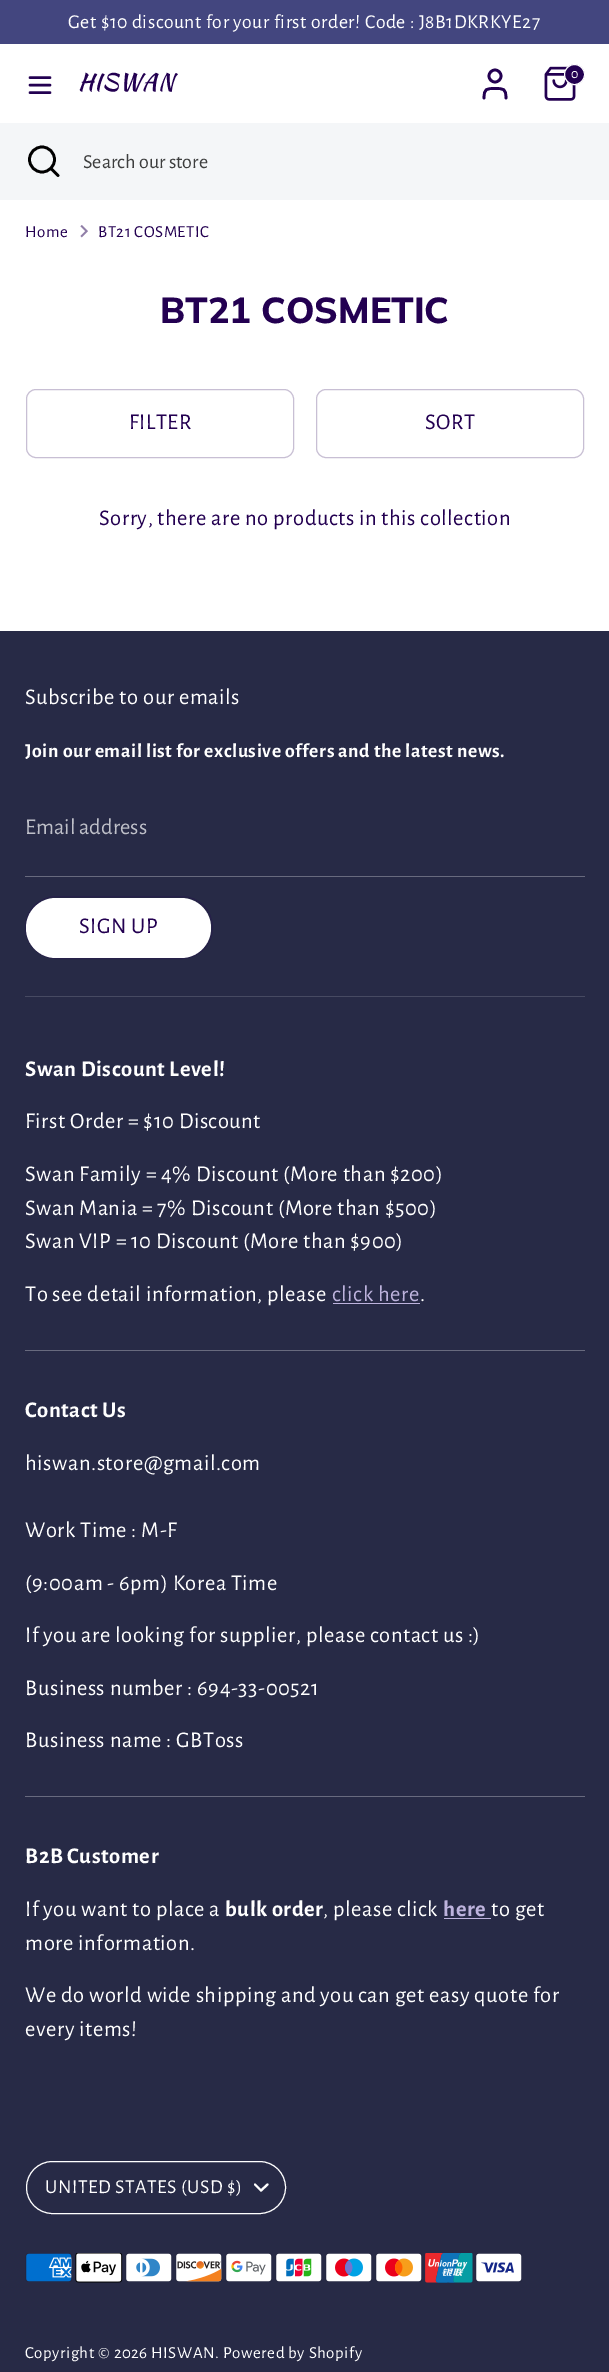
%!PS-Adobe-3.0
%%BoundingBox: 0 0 609 2372
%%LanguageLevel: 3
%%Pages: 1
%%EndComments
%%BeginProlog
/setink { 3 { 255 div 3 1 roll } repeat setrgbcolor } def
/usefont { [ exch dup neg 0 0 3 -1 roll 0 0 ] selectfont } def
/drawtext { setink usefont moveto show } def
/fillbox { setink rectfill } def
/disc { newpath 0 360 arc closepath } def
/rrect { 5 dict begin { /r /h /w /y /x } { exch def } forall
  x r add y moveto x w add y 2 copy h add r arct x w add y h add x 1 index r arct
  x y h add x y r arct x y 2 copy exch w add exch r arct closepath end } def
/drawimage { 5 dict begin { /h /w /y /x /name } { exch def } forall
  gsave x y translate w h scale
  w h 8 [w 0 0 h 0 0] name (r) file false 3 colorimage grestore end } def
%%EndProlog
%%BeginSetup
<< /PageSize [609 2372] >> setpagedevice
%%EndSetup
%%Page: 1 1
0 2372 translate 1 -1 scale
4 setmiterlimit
0 0 609 2372 255 255 255 fillbox
0 0 609 44 67 70 127 fillbox
/AlegreyaSans-Regular 19.7 usefont
255 255 255 setink
68 28 moveto 0.55 0 (Get $10 discount for your first order! Code : J8B1DKRKYE27) ashow
35 0 81 setink
2.5 setlinewidth
1 setlinecap
1 setlinejoin
30 85 moveto 50 85 lineto 30 77.5 moveto 50 77.5 lineto 30 92.5 moveto 50 92.5 lineto stroke
/KaushanScript-Regular 23.5 usefont
78 90 moveto 0.5 0 (HISWAN) ashow
2.7 setlinewidth
506 98 moveto 506 88.5 503.5 88.5 495 88.5 curveto 486.5 88.5 484 88.5 484 98 curveto stroke
0 setlinecap
0 setlinejoin
495 76 6 disc stroke
(assets/img1.rgb) 544 66 32 35 drawimage
574.5 74.5 10 disc gsave fill grestore
255 255 255 setink
1 setlinewidth
stroke
(0) 571 78 /AlegreyaSans-Regular 14 255 255 255 drawtext
0 123 609 77 244 246 248 fillbox
0 0 0 setink
2.7 setlinewidth
42 159.5 12.5 disc stroke
1 setlinecap
1 setlinejoin
58 175.5 moveto 51 168.5 lineto stroke
(Search our store) 83 168 /AlegreyaSans-Regular 20 61 62 62 drawtext
/AlegreyaSans-Regular 16.9 usefont
35 0 81 setink
25 237 moveto 0.55 0 (Home) ashow
(assets/img2.rgb) 80 225 8 13 drawimage
98 237 moveto 0.55 0 (BT21 COSMETIC) ashow
(BT21 COSMETIC) 160 323 /Muli-ExtraBold 36 35 0 81 drawtext
200 191 212 setink
1 setlinewidth
0 setlinecap
0 setlinejoin
26.5 389.5 267 68 9.5 rrect stroke
/AlegreyaSans-Regular 22.5 usefont
35 0 81 setink
129 429 moveto 0.55 0 (FILTER) ashow
200 191 212 setink
316.5 389.5 267 68 9.5 rrect stroke
35 0 81 setink
425 429 moveto 0.55 0 (SORT) ashow
99 525 moveto 0.55 0 (Sorry, there are no products in this collection) ashow
0 631 609 1741 39 42 70 fillbox
255 255 255 setink
25 704 moveto 0.55 0 (Subscribe to our emails) ashow
/AlegreyaSans-Bold 19.7 usefont
25 757 moveto 0.55 0 (Join our email list for exclusive offers and the latest news.) ashow
25 876 560 1 104 106 126 fillbox
(Email address) 25 834 /AlegreyaSans-Regular 22.5 190 191 200 drawtext
38 32 73 setink
25.5 896.5 187 62 31 rrect stroke
255 255 255 setink
26 898 185 60 30 rrect fill
35 0 81 setink
79 933 moveto 0.55 0 (SIGN UP) ashow
25 996 560 1 71 74 98 fillbox
25 1350 560 1 104 106 126 fillbox
/AlegreyaSans-Bold 22.5 usefont
255 255 255 setink
25 1076 moveto 0.55 0 (Swan Discount Level!) ashow
/AlegreyaSans-Regular 22.5 usefont
25 1128 moveto 0.55 0 (First Order = $10 Discount) ashow
25 1181 moveto 0.55 0 (Swan Family = 4% Discount \(More than $200\)) ashow
25 1215 moveto 0.55 0 (Swan Mania = 7% Discount \(More than $500\)) ashow
25 1248 moveto 0.55 0 (Swan VIP = 10 Discount \(More than $900\)) ashow
25 1301 moveto 0.55 0 (To see detail information, please) ashow
189 179 221 setink
332 1301 moveto 0.55 0 (click here) ashow
333 1303 87 1 189 179 221 fillbox
255 255 255 setink
420 1301 moveto 0.55 0 (.) ashow
25 1796 560 1 104 106 126 fillbox
/AlegreyaSans-Bold 22.5 usefont
255 255 255 setink
25 1417 moveto 0.55 0 (Contact Us) ashow
/AlegreyaSans-Regular 22.5 usefont
25 1470 moveto 0.55 0 (hiswan.store@gmail.com) ashow
25 1537 moveto 0.55 0 (Work Time : M-F) ashow
25 1590 moveto 0.55 0 (\(9:00am - 6pm\) Korea Time) ashow
25 1642 moveto 0.55 0 (If you are looking for supplier, please contact us :\)) ashow
25 1695 moveto 0.55 0 (Business number : 694-33-00521) ashow
25 1747 moveto 0.55 0 (Business name : GBToss) ashow
/AlegreyaSans-Bold 22.5 usefont
25 1863 moveto 0.55 0 (B2B Customer) ashow
/AlegreyaSans-Regular 22.5 usefont
25 1916 moveto 0.55 0 (If you want to place a) ashow
/AlegreyaSans-Bold 22.5 usefont
225 1916 moveto 0.55 0 (bulk order) ashow
/AlegreyaSans-Regular 22.5 usefont
323 1916 moveto 0.55 0 (, please click) ashow
/AlegreyaSans-Bold 22.5 usefont
189 179 221 setink
443 1916 moveto 0.55 0 (here) ashow
444 1918 47 1 189 179 221 fillbox
/AlegreyaSans-Regular 22.5 usefont
255 255 255 setink
491 1916 moveto 0.55 0 (to get) ashow
25 1950 moveto 0.55 0 (more information.) ashow
25 2002 moveto 0.55 0 (We do world wide shipping and you can get easy quote for) ashow
25 2036 moveto 0.55 0 (every items!) ashow
26.5 2161.5 259 52 26 rrect stroke
/AlegreyaSans-Regular 19.7 usefont
45 2193 moveto 0.55 0 (UNITED STATES \(USD $\)) ashow
2.1 setlinewidth
1 setlinecap
255 2184.5 moveto 261 2190.5 lineto 267.5 2184.5 lineto stroke
(assets/img3.rgb) 25 2253 47 29 drawimage
(assets/img4.rgb) 75 2253 48 30 drawimage
(assets/img5.rgb) 125 2253 47 29 drawimage
(assets/img6.rgb) 175 2253 47 29 drawimage
(assets/img7.rgb) 225 2253 47 29 drawimage
(assets/img8.rgb) 275 2253 47 29 drawimage
(assets/img9.rgb) 325 2253 47 29 drawimage
(assets/img10.rgb) 375 2253 47 29 drawimage
(assets/img11.rgb) 425 2253 48 30 drawimage
(assets/img12.rgb) 475 2253 47 29 drawimage
/AlegreyaSans-Regular 16.9 usefont
25 2358 moveto 0.55 0 (Copyright © 2026 HISWAN. Powered by Shopify) ashow
showpage
%%EOF
